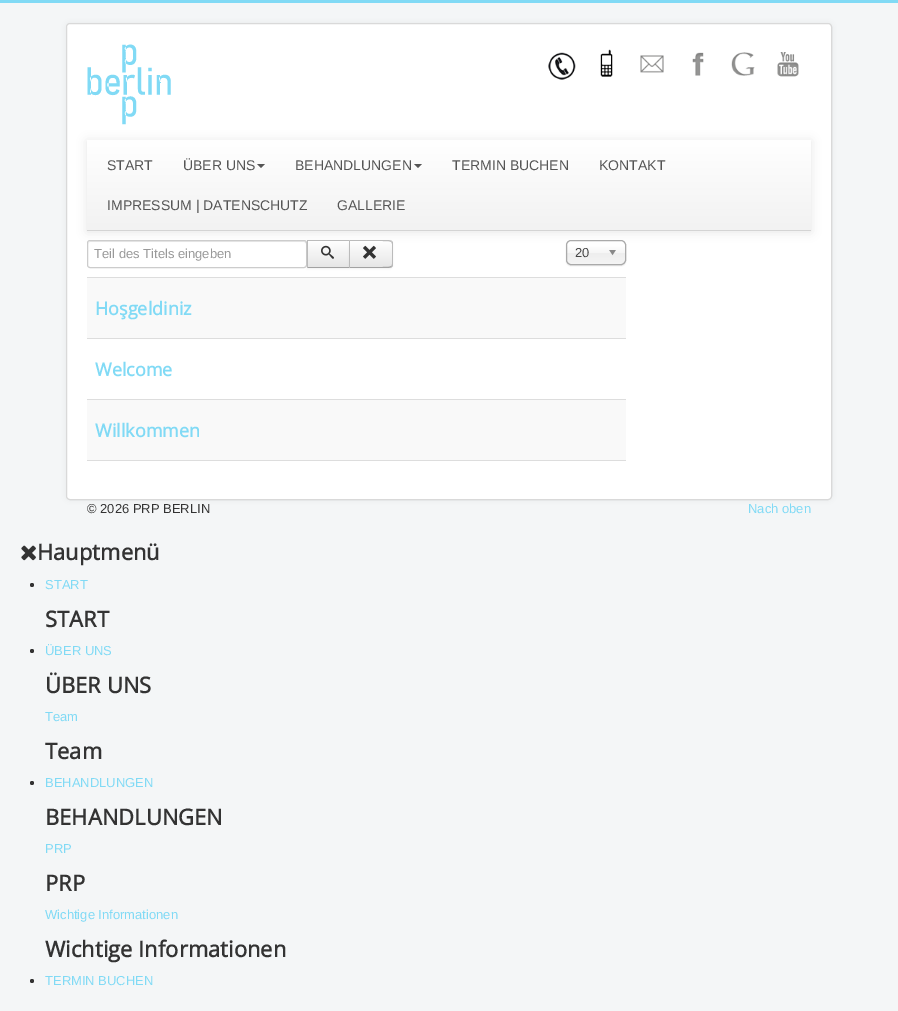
%!PS-Adobe-3.0
%%BoundingBox: 0 0 898 1011
%%LanguageLevel: 3
%%Pages: 1
%%EndComments
%%BeginProlog
/setink { 3 { 255 div 3 1 roll } repeat setrgbcolor } def
/usefont { [ exch dup neg 0 0 3 -1 roll 0 0 ] selectfont } def
/drawtext { setink usefont moveto show } def
/fillbox { setink rectfill } def
/setalpha { dup .setfillconstantalpha .setstrokeconstantalpha } def
/disc { newpath 0 360 arc closepath } def
/rrect { 5 dict begin { /r /h /w /y /x } { exch def } forall
  x r add y moveto x w add y 2 copy h add r arct x w add y h add x 1 index r arct
  x y h add x y r arct x y 2 copy exch w add exch r arct closepath end } def
/softshadow { 12 dict begin { /a /b /q /h /w /y /x } { exch def } forall gsave /was 0 def
  9 -2 -9 { dup b mul 4 div /e exch def 1 sub .425 mul 2.718 exch exp 1 add a .99 .min exch div /now exch def
    1 1 now sub 1 was sub div sub setalpha /was now def
    w h .min e 2 mul add 0 gt { x e sub y e sub w e 2 mul add h e 2 mul add
      q e add b .6 mul add w h .min 2 div e add .min 0 .max rrect fill } if } for grestore end } def
/drawimage { 5 dict begin { /h /w /y /x /name } { exch def } forall
  gsave x y translate w h scale
  w h 8 [w 0 0 h 0 0] name (r) file false 3 colorimage grestore end } def
%%EndProlog
%%BeginSetup
<< /PageSize [898 1011] /PageUsesTransparency true >> setpagedevice
%%EndSetup
%%Page: 1 1
0 .pushpdf14devicefilter
0 1011 translate 1 -1 scale
4 setmiterlimit
0 0 898 1011 244 246 247 fillbox
0 0 898 3 129 218 245 fillbox
0 0 0 setink
66 23 766 477 4 3 0.05 softshadow
255 255 255 setink
66 23 766 477 4 rrect fill
0.15 setalpha
0 0 0 setink
66.5 23.5 765 476 3.5 rrect stroke
1 setalpha
(assets/img1.rgb) 87 44 84 81 drawimage
(assets/img2.rgb) 548 52 28 28 drawimage
(assets/img3.rgb) 600 49 13 28 drawimage
(assets/img4.rgb) 640 55 24 18 drawimage
(assets/img5.rgb) 692 52 12 24 drawimage
(assets/img6.rgb) 731 52 24 24 drawimage
(assets/img7.rgb) 777 52 22 25 drawimage
87 141 724 91 0 5 0.1 softshadow
gsave 87 140 moveto 811 140 lineto 811 230 lineto 87 230 lineto closepath clip newpath
<< /ShadingType 2 /ColorSpace /DeviceRGB /Coords [449 140 449 230] /Extend [true true] /Function << /FunctionType 2 /Domain [0 1] /C0 [1 1 1] /C1 [0.949 0.949 0.949] /N 1 >> >> shfill grestore
87 230 724 1 212 212 212 fillbox
(START) 107 170 /LiberationSans-Regular 14 85 85 85 drawtext
(ÜBER UNS) 183 170 /LiberationSans-Regular 14 85 85 85 drawtext
257 164 moveto 265 164 lineto 261 168 lineto closepath fill
(BEHANDLUNGEN) 295 170 /LiberationSans-Regular 14 85 85 85 drawtext
414 164 moveto 422 164 lineto 418 168 lineto closepath fill
(TERMIN BUCHEN) 452 170 /LiberationSans-Regular 14 85 85 85 drawtext
(KONTAKT) 599 170 /LiberationSans-Regular 14 85 85 85 drawtext
(IMPRESSUM | DATENSCHUTZ) 107 210 /LiberationSans-Regular 14 85 85 85 drawtext
(GALLERIE) 337 210 /LiberationSans-Regular 14 85 85 85 drawtext
235 235 235 setink
90 242 moveto 304 242 lineto 305 242 306 243 306 244 curveto 306 243 306 241 304 241 curveto 90 241 lineto 89 242 lineto 88 244 lineto 88 243 89 242 90 242 curveto closepath fill
204 204 204 setink
87.5 240.5 219 27 2.5 rrect stroke
(Teil des Titels eingeben) 94 258 /LiberationSans-Regular 13 153 153 153 drawtext
0 0 0 setink
307 241 43 28 0 1 0.05 softshadow
gsave 308 241 moveto 349 241 lineto 349 267 lineto 308 267 lineto closepath clip newpath
<< /ShadingType 2 /ColorSpace /DeviceRGB /Coords [329 241 329 267] /Extend [true true] /Function << /FunctionType 2 /Domain [0 1] /C0 [1 1 1] /C1 [0.902 0.902 0.902] /N 1 >> >> shfill grestore
307 240 43 1 187 187 187 fillbox
307 267 43 1 162 162 162 fillbox
307 240 1 28 187 187 187 fillbox
(assets/img8.rgb) 321 245 13 14 drawimage
0 0 0 setink
349 241 44 28 4 1 0.05 softshadow
245 245 245 setink
349 240 moveto 389 240 lineto 391 240 393 242 393 244 curveto 393 264 lineto 393 266 391 268 389 268 curveto 349 268 lineto closepath fill
gsave
349 240 moveto 389 240 lineto 391 240 393 242 393 244 curveto 393 264 lineto 393 266 391 268 389 268 curveto 349 268 lineto closepath clip newpath
gsave 350 241 moveto 393 241 lineto 393 267 lineto 350 267 lineto closepath clip newpath
<< /ShadingType 2 /ColorSpace /DeviceRGB /Coords [371 241 371 267] /Extend [true true] /Function << /FunctionType 2 /Domain [0 1] /C0 [1 1 1] /C1 [0.902 0.902 0.902] /N 1 >> >> shfill grestore
grestore
187 187 187 setink
349 240 moveto 350 241 lineto 382 241 lineto 387 241 390 241 391 242 curveto 392 241 lineto 390 240 388 240 382 240 curveto closepath fill
393 265.5 moveto 392 267 lineto 391 266 lineto 392 265.5 392 264.5 392 264 curveto 392 254 lineto 392 244 lineto 392 243.5 392 242.5 391 242 curveto 392 241 lineto 393 242.5 lineto closepath fill
162 162 162 setink
382 268 moveto 388 268 390 268 392 267 curveto 391 266 lineto 390 267 387 267 382 267 curveto 350 267 lineto 349 268 lineto closepath fill
187 187 187 setink
349 240 moveto 349 268 lineto 350 267 lineto 350 241 lineto closepath fill
(assets/img9.rgb) 363 245 13 14 drawimage
0 0 0 setink
566 241 60 25 5 0.5 0.1 softshadow
gsave 567 241 58 23 4 rrect clip newpath
<< /ShadingType 2 /ColorSpace /DeviceRGB /Coords [596 241 596 264] /Extend [true true] /Function << /FunctionType 3 /Domain [0 1] /Functions [<< /FunctionType 2 /Domain [0 1] /C0 [1 1 1] /C1 [1 1 1] /N 1 >> << /FunctionType 2 /Domain [0 1] /C0 [1 1 1] /C1 [0.965 0.965 0.965] /N 1 >> << /FunctionType 2 /Domain [0 1] /C0 [0.965 0.965 0.965] /C1 [0.933 0.933 0.933] /N 1 >> << /FunctionType 2 /Domain [0 1] /C0 [0.933 0.933 0.933] /C1 [0.957 0.957 0.957] /N 1 >>] /Bounds [0.2 0.5 0.52] /Encode [0 1 0 1 0 1 0 1] >> >> shfill grestore
170 170 170 setink
566.5 240.5 59 24 4.5 rrect stroke
(20) 575 257 /LiberationSans-Regular 13 68 68 68 drawtext
(assets/img10.rgb) 609 250 7 6 drawimage
87 277 539 1 221 221 221 fillbox
87 278 539 60 249 249 249 fillbox
87 338 539 1 221 221 221 fillbox
(Hoşgeldiniz) 95 315 /OpenSans-Bold 18 129 218 245 drawtext
87 399 539 1 221 221 221 fillbox
(Welcome) 95 376 /OpenSans-Bold 18 129 218 245 drawtext
87 400 539 60 249 249 249 fillbox
87 460 539 1 221 221 221 fillbox
(Willkommen) 95 437 /OpenSans-Bold 18 129 218 245 drawtext
(© 2026 PRP BERLIN) 87 513 /LiberationSans-Regular 13 51 51 51 drawtext
(Nach oben) 748 513 /LiberationSans-Regular 13 129 218 245 drawtext
(assets/img11.rgb) 21 545 15 16 drawimage
(Hauptmenü) 37 560 /OpenSans-Bold 22 51 51 51 drawtext
32 585 2 disc fill
(START) 45 589 /LiberationSans-Regular 13 129 218 245 drawtext
(START) 45 627 /OpenSans-Bold 22 51 51 51 drawtext
32 651 2 disc fill
(ÜBER UNS) 45 655 /LiberationSans-Regular 13 129 218 245 drawtext
(ÜBER UNS) 45 693 /OpenSans-Bold 22 51 51 51 drawtext
(Team) 45 721 /LiberationSans-Regular 13 129 218 245 drawtext
(Team) 45 759 /OpenSans-Bold 22 51 51 51 drawtext
32 783 2 disc fill
(BEHANDLUNGEN) 45 787 /LiberationSans-Regular 13 129 218 245 drawtext
(BEHANDLUNGEN) 45 825 /OpenSans-Bold 22 51 51 51 drawtext
(PRP) 45 853 /LiberationSans-Regular 13 129 218 245 drawtext
(PRP) 45 891 /OpenSans-Bold 22 51 51 51 drawtext
(Wichtige Informationen) 45 919 /LiberationSans-Regular 13 129 218 245 drawtext
(Wichtige Informationen) 45 957 /OpenSans-Bold 22 51 51 51 drawtext
32 981 2 disc fill
(TERMIN BUCHEN) 45 985 /LiberationSans-Regular 13 129 218 245 drawtext
.poppdf14devicefilter showpage
%%EOF
